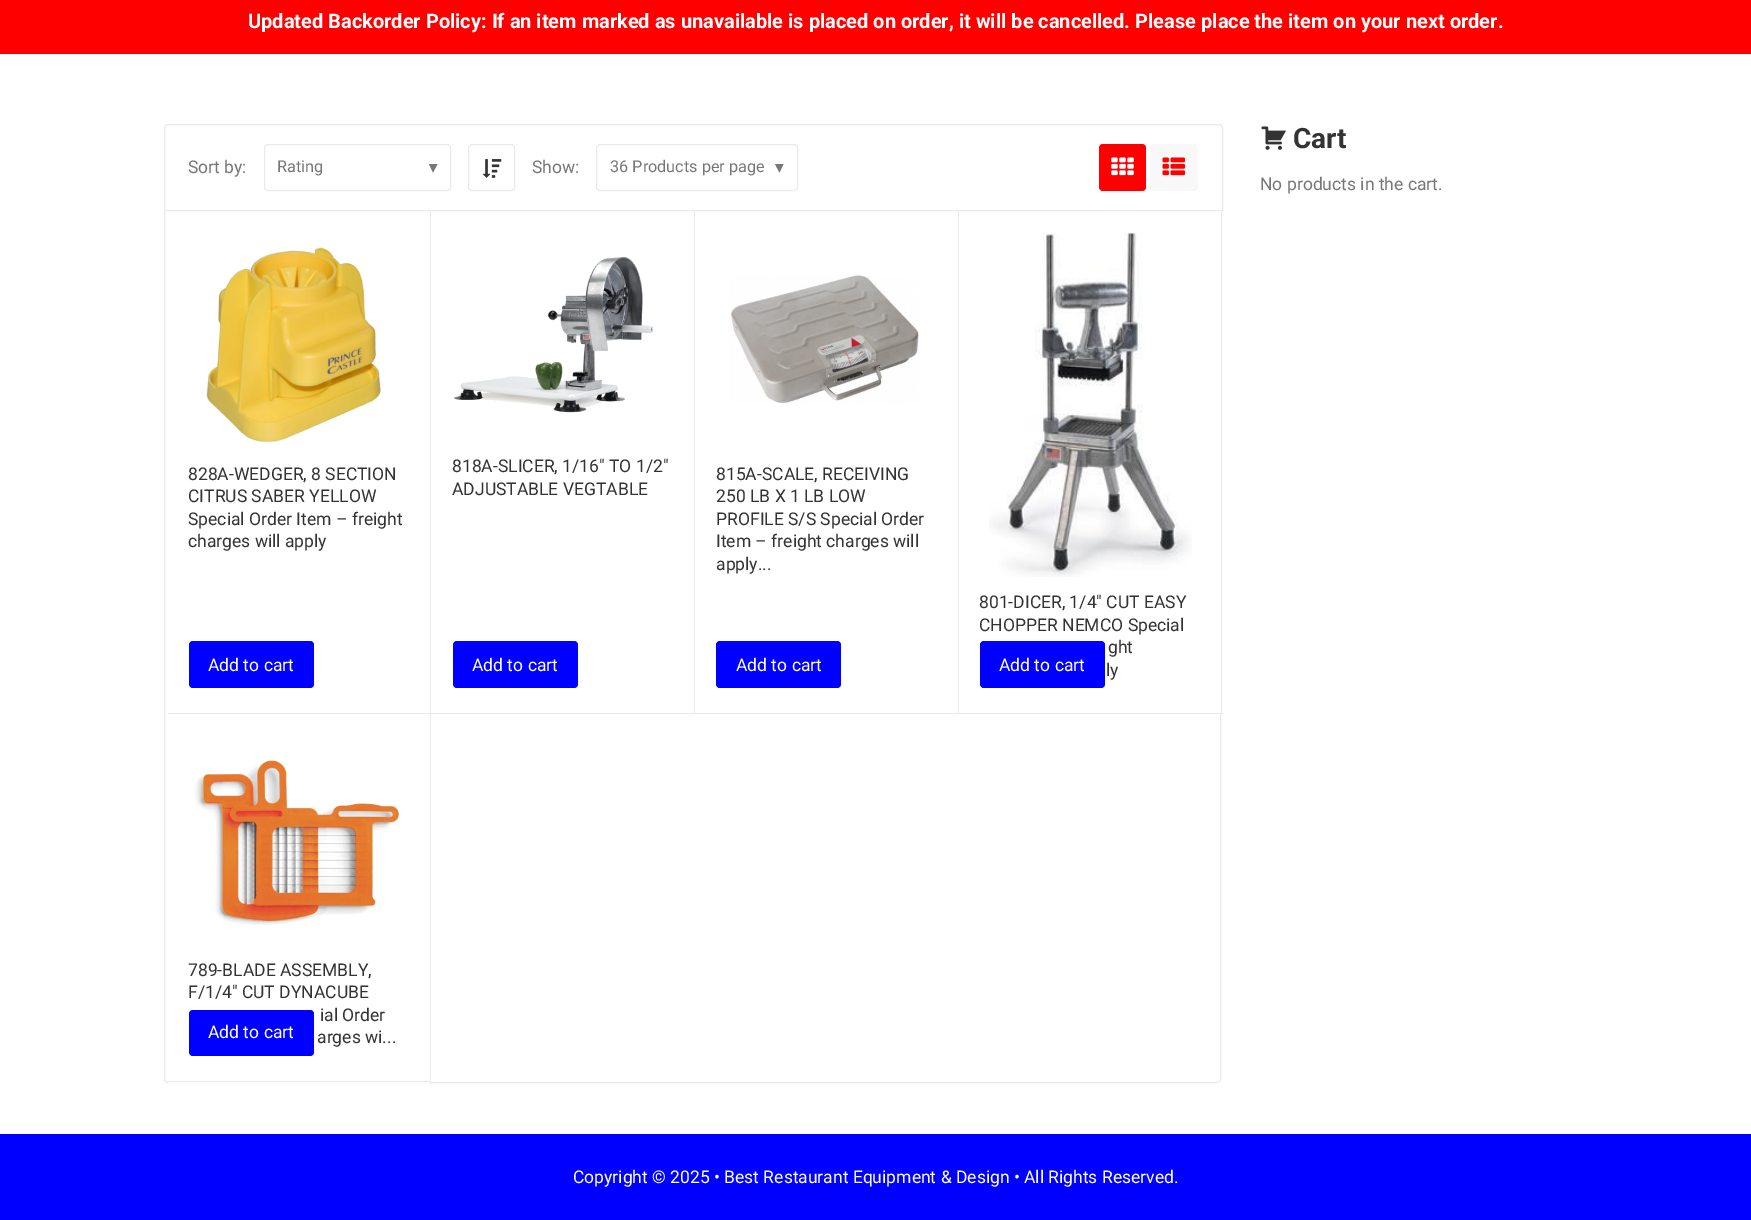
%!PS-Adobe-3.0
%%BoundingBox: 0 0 1751 1220
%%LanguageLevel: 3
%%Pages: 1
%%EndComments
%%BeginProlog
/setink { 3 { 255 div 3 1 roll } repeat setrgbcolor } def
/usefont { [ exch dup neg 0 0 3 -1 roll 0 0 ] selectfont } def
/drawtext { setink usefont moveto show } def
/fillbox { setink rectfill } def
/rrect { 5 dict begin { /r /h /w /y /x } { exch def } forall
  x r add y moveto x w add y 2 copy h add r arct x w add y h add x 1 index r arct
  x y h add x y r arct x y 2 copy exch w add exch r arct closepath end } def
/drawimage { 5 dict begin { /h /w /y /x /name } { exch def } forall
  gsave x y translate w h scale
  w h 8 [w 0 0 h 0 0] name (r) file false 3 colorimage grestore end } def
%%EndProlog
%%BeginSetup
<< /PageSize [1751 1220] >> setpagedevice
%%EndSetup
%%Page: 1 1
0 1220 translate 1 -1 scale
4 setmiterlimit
0 0 1751 1220 255 255 255 fillbox
0 0 1751 54 255 0 0 fillbox
(Updated Backorder Policy: If an item marked as unavailable is placed on order, it will be cancelled. Please place the item on your next order.) 248 28 /Roboto-Bold 20 255 255 255 drawtext
234 234 234 setink
164.5 209.5 1056 873 3.5 rrect stroke
255 255 255 setink
168 124.5 moveto 1219 124.5 lineto 1221 124.5 1222.5 126 1222.5 128 curveto 1222.5 210.5 lineto 164.5 210.5 lineto 164.5 128 lineto 164.5 126 166 124.5 168 124.5 curveto closepath gsave fill grestore
234 234 234 setink
stroke
(Sort by:) 188 173 /Roboto-Regular 17.5 119 119 119 drawtext
234 234 234 setink
264.5 144.5 186 46 3.5 rrect stroke
(Rating) 277 172 /Roboto-Regular 16.25 119 119 119 drawtext
433 172.5 moveto 429 164 lineto 437.5 164 lineto closepath fill
234 234 234 setink
468.5 144.5 46 46 3.5 rrect stroke
(assets/img1.rgb) 482 159 20 19 drawimage
(Show:) 532 173 /Roboto-Regular 17.5 119 119 119 drawtext
234 234 234 setink
596.5 144.5 201 46 3.5 rrect stroke
(36 Products per page) 610 172 /Roboto-Regular 16.25 119 119 119 drawtext
779.5 172.5 moveto 775 164 lineto 783.5 164 lineto closepath fill
255 0 0 setink
1099 144 47 47 4 rrect fill
(assets/img2.rgb) 1111 157 23 19 drawimage
248 248 248 setink
1150 144 48 47 4 rrect fill
(assets/img3.rgb) 1162 157 23 19 drawimage
430 211 1 872 234 234 234 fillbox
168 713 263 1 234 234 234 fillbox
(assets/img4.rgb) 206 247 175 196 drawimage
(828A-WEDGER, 8 SECTION) 188 480 /Roboto-Regular 17.5 51 51 51 drawtext
(CITRUS SABER YELLOW) 188 502 /Roboto-Regular 17.5 51 51 51 drawtext
(Special Order Item – freight) 188 525 /Roboto-Regular 17.5 51 51 51 drawtext
(charges will apply) 188 547 /Roboto-Regular 17.5 51 51 51 drawtext
0 0 255 setink
189 641 125 47 4 rrect fill
(Add to cart) 208 671 /Roboto-Regular 17.5 255 255 255 drawtext
694 211 1 503 234 234 234 fillbox
431 713 264 1 234 234 234 fillbox
(assets/img5.rgb) 454 256 200 157 drawimage
(818A-SLICER, 1/16″ TO 1/2″) 452 472 /Roboto-Regular 17.5 51 51 51 drawtext
(ADJUSTABLE VEGTABLE) 452 495 /Roboto-Regular 17.5 51 51 51 drawtext
0 0 255 setink
453 641 125 47 4 rrect fill
(Add to cart) 472 671 /Roboto-Regular 17.5 255 255 255 drawtext
958 211 1 503 234 234 234 fillbox
695 713 264 1 234 234 234 fillbox
(assets/img6.rgb) 730 275 189 129 drawimage
(815A-SCALE, RECEIVING) 716 480 /Roboto-Regular 17.5 51 51 51 drawtext
(250 LB X 1 LB LOW) 716 502 /Roboto-Regular 17.5 51 51 51 drawtext
(PROFILE S/S Special Order) 716 525 /Roboto-Regular 17.5 51 51 51 drawtext
(Item – freight charges will) 716 547 /Roboto-Regular 17.5 51 51 51 drawtext
(apply...) 716 570 /Roboto-Regular 17.5 51 51 51 drawtext
0 0 255 setink
716 641 125 47 4 rrect fill
(Add to cart) 736 671 /Roboto-Regular 17.5 255 255 255 drawtext
1219 211 2 502 255 255 255 fillbox
1221 211 1 503 234 234 234 fillbox
959 713 264 1 234 234 234 fillbox
(assets/img7.rgb) 989 233 203 344 drawimage
(801-DICER, 1/4″ CUT EASY) 979 608 /Roboto-Regular 17.5 51 51 51 drawtext
(CHOPPER NEMCO Special) 979 631 /Roboto-Regular 17.5 51 51 51 drawtext
(ght) 1108 653 /Roboto-Regular 17.5 51 51 51 drawtext
(ly) 1106 676 /Roboto-Regular 17.5 51 51 51 drawtext
0 0 255 setink
980 641 125 47 4 rrect fill
(Add to cart) 999 671 /Roboto-Regular 17.5 255 255 255 drawtext
(assets/img8.rgb) 195 760 208 165 drawimage
(789-BLADE ASSEMBLY,) 188 976 /Roboto-Regular 17.5 51 51 51 drawtext
(F/1/4″ CUT DYNACUBE) 188 998 /Roboto-Regular 17.5 51 51 51 drawtext
(ial Order) 320 1021 /Roboto-Regular 17.5 51 51 51 drawtext
(arges wi...) 317 1043 /Roboto-Regular 17.5 51 51 51 drawtext
0 0 255 setink
189 1010 125 46 4 rrect fill
(Add to cart) 208 1038 /Roboto-Regular 17.5 255 255 255 drawtext
168 1082 262 1 255 255 255 fillbox
168 1081 263 1 234 234 234 fillbox
(assets/img9.rgb) 1261 126 25 24 drawimage
(Cart) 1293 148 /Roboto-Bold 28 51 51 51 drawtext
(No products in the cart.) 1260 190 /Roboto-Regular 17.5 119 119 119 drawtext
0 1134 1751 86 0 0 255 fillbox
(Copyright © 2025 • Best Restaurant Equipment & Design • All Rights Reserved.) 573 1183 /Roboto-Regular 17.5 255 255 255 drawtext
showpage
%%EOF
